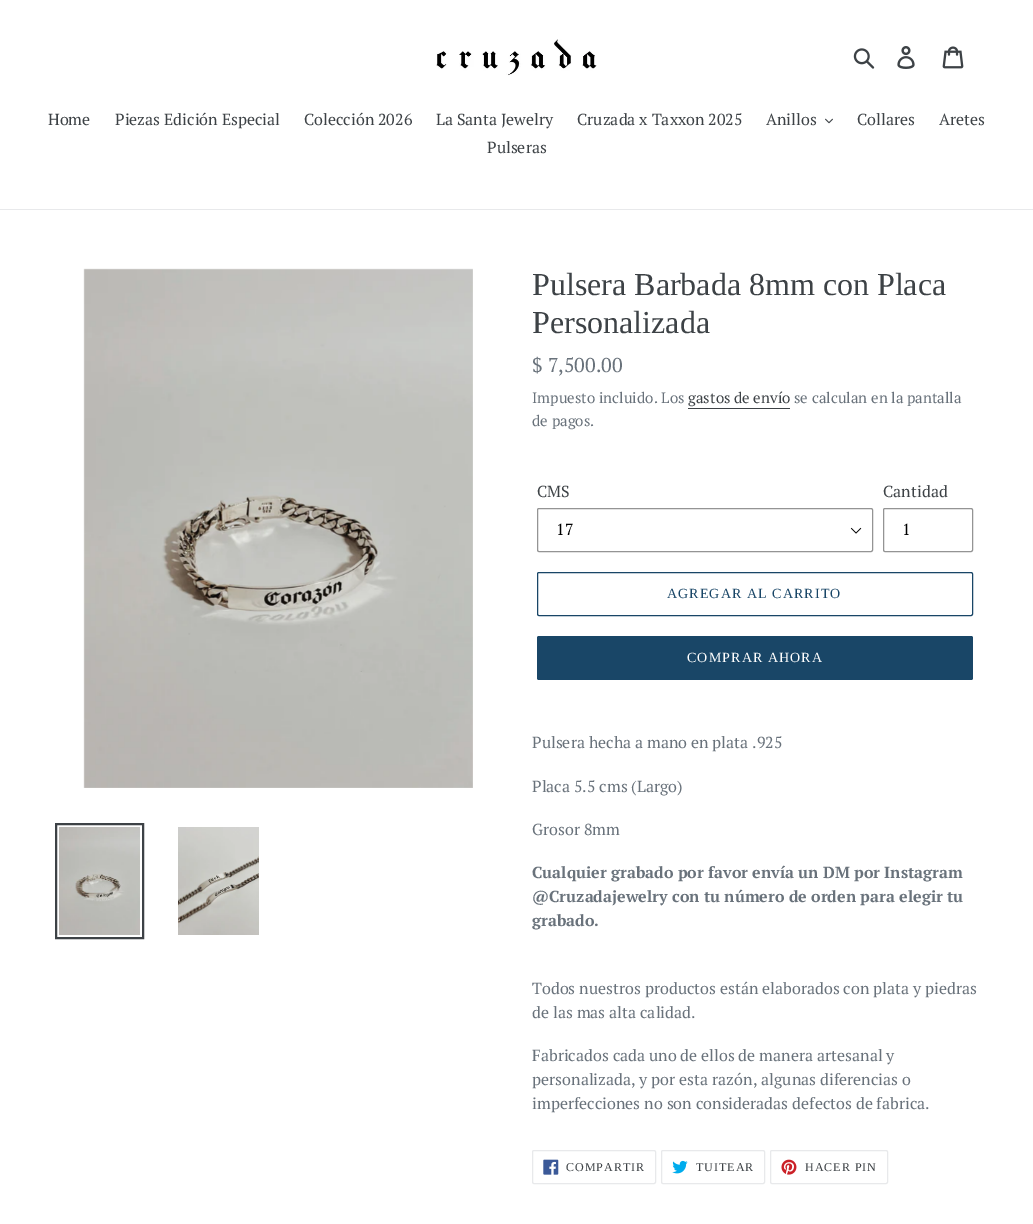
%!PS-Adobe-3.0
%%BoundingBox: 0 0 1033 1224
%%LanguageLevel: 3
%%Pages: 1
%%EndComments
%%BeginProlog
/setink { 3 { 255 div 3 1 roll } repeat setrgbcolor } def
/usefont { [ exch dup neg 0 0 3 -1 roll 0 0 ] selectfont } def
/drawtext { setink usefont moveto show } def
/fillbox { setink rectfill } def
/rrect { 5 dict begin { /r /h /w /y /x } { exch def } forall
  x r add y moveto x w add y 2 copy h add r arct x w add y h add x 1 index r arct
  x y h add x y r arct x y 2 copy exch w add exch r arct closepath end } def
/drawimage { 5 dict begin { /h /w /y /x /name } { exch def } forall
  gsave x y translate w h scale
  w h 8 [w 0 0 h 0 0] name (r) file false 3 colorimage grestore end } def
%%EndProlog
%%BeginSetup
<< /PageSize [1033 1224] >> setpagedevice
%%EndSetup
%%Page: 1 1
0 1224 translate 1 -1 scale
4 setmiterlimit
0 0 1033 1224 255 255 255 fillbox
(assets/img1.rgb) 436 39 161 37 drawimage
(assets/img2.rgb) 853 48 22 21 drawimage
(assets/img3.rgb) 897 46 18 23 drawimage
(assets/img4.rgb) 942 46 22 23 drawimage
0 209 1033 1 232 233 235 fillbox
(Home) 48 125 /PTSerif-Regular 16 61 66 70 drawtext
(Piezas Edición Especial) 115 125 /PTSerif-Regular 16 61 66 70 drawtext
(Colección 2026) 304 125 /PTSerif-Regular 16 61 66 70 drawtext
(La Santa Jewelry) 436 125 /PTSerif-Regular 16 61 66 70 drawtext
(Cruzada x Taxxon 2025) 577 125 /PTSerif-Regular 16 61 66 70 drawtext
(Anillos) 766 125 /PTSerif-Regular 16 61 66 70 drawtext
(assets/img5.rgb) 825 118 8 6 drawimage
(Collares) 857 125 /PTSerif-Regular 16 61 66 70 drawtext
(Aretes) 939 125 /PTSerif-Regular 16 61 66 70 drawtext
(Pulseras) 487 153 /PTSerif-Regular 16 61 66 70 drawtext
(assets/img6.rgb) 83 268 390 520 drawimage
2 setlinewidth
56 824 87 114 rectstroke
(assets/img7.rgb) 59 827 81 108 drawimage
(assets/img8.rgb) 178 827 81 108 drawimage
(Pulsera Barbada 8mm con Placa) 532 295 /LiberationSerif-Regular 32 61 66 70 drawtext
(Personalizada) 532 333 /LiberationSerif-Regular 32 61 66 70 drawtext
($ 7,500.00) 532 372 /PTSerif-Regular 20 105 114 123 drawtext
(Impuesto incluido. Los) 532 403 /PTSerif-Regular 15 105 114 123 drawtext
(gastos de envío) 688 403 /PTSerif-Regular 15 61 66 70 drawtext
688 408 102 1 61 66 70 fillbox
(se calculan en la pantalla) 794 403 /PTSerif-Regular 15 105 114 123 drawtext
(de pagos.) 532 426 /PTSerif-Regular 15 105 114 123 drawtext
(CMS) 537 497 /PTSerif-Regular 16 61 66 70 drawtext
(assets/img9.rgb) 850 527 12 7 drawimage
148 148 148 setink
1 setlinewidth
537.5 508.5 335 43 1.5 rrect stroke
(17) 556 535 /PTSerif-Regular 16 0 0 0 drawtext
(Cantidad) 883 497 /PTSerif-Regular 16 61 66 70 drawtext
148 148 148 setink
883.5 508.5 89 43 1.5 rrect stroke
(1) 902 535 /PTSerif-Regular 16 0 0 0 drawtext
25 70 103 setink
537.5 572.5 435 43 1.5 rrect stroke
/LiberationSerif-Regular 14 usefont
667 598 moveto 1.1 0 (AGREGAR AL CARRITO) ashow
537 636 436 44 2 rrect fill
255 255 255 setink
687 662 moveto 1.1 0 (COMPRAR AHORA) ashow
(Pulsera hecha a mano en plata .925) 532 748 /PTSerif-Regular 16 105 114 123 drawtext
(Placa 5.5 cms \(Largo\)) 532 792 /PTSerif-Regular 16 105 114 123 drawtext
(Grosor 8mm) 532 835 /PTSerif-Regular 16 105 114 123 drawtext
(Cualquier grabado por favor envía un DM por Instagram) 532 878 /PTSerif-Bold 16 105 114 123 drawtext
(@Cruzadajewelry con tu número de orden para elegir tu) 532 902 /PTSerif-Bold 16 105 114 123 drawtext
(grabado.) 532 926 /PTSerif-Bold 16 105 114 123 drawtext
(Todos nuestros productos están elaborados con plata y piedras) 532 994 /PTSerif-Regular 16 105 114 123 drawtext
(de las mas alta calidad.) 532 1018 /PTSerif-Regular 16 105 114 123 drawtext
(Fabricados cada uno de ellos de manera artesanal y) 532 1061 /PTSerif-Regular 16 105 114 123 drawtext
(personalizada, y por esta razón, algunas diferencias o) 532 1085 /PTSerif-Regular 16 105 114 123 drawtext
(imperfecciones no son consideradas defectos de fabrica.) 532 1109 /PTSerif-Regular 16 105 114 123 drawtext
232 233 235 setink
532.5 1150.5 123 33 1.5 rrect stroke
(assets/img10.rgb) 543 1159 16 16 drawimage
/LiberationSerif-Regular 12 usefont
61 66 70 setink
566 1171 moveto 1 0 (COMPARTIR) ashow
232 233 235 setink
661.5 1150.5 103 33 1.5 rrect stroke
(assets/img11.rgb) 672 1160 16 14 drawimage
61 66 70 setink
696 1171 moveto 1 0 (TUITEAR) ashow
232 233 235 setink
770.5 1150.5 117 33 1.5 rrect stroke
(assets/img12.rgb) 781 1159 16 16 drawimage
61 66 70 setink
805 1171 moveto 1 0 (HACER PIN) ashow
showpage
%%EOF
